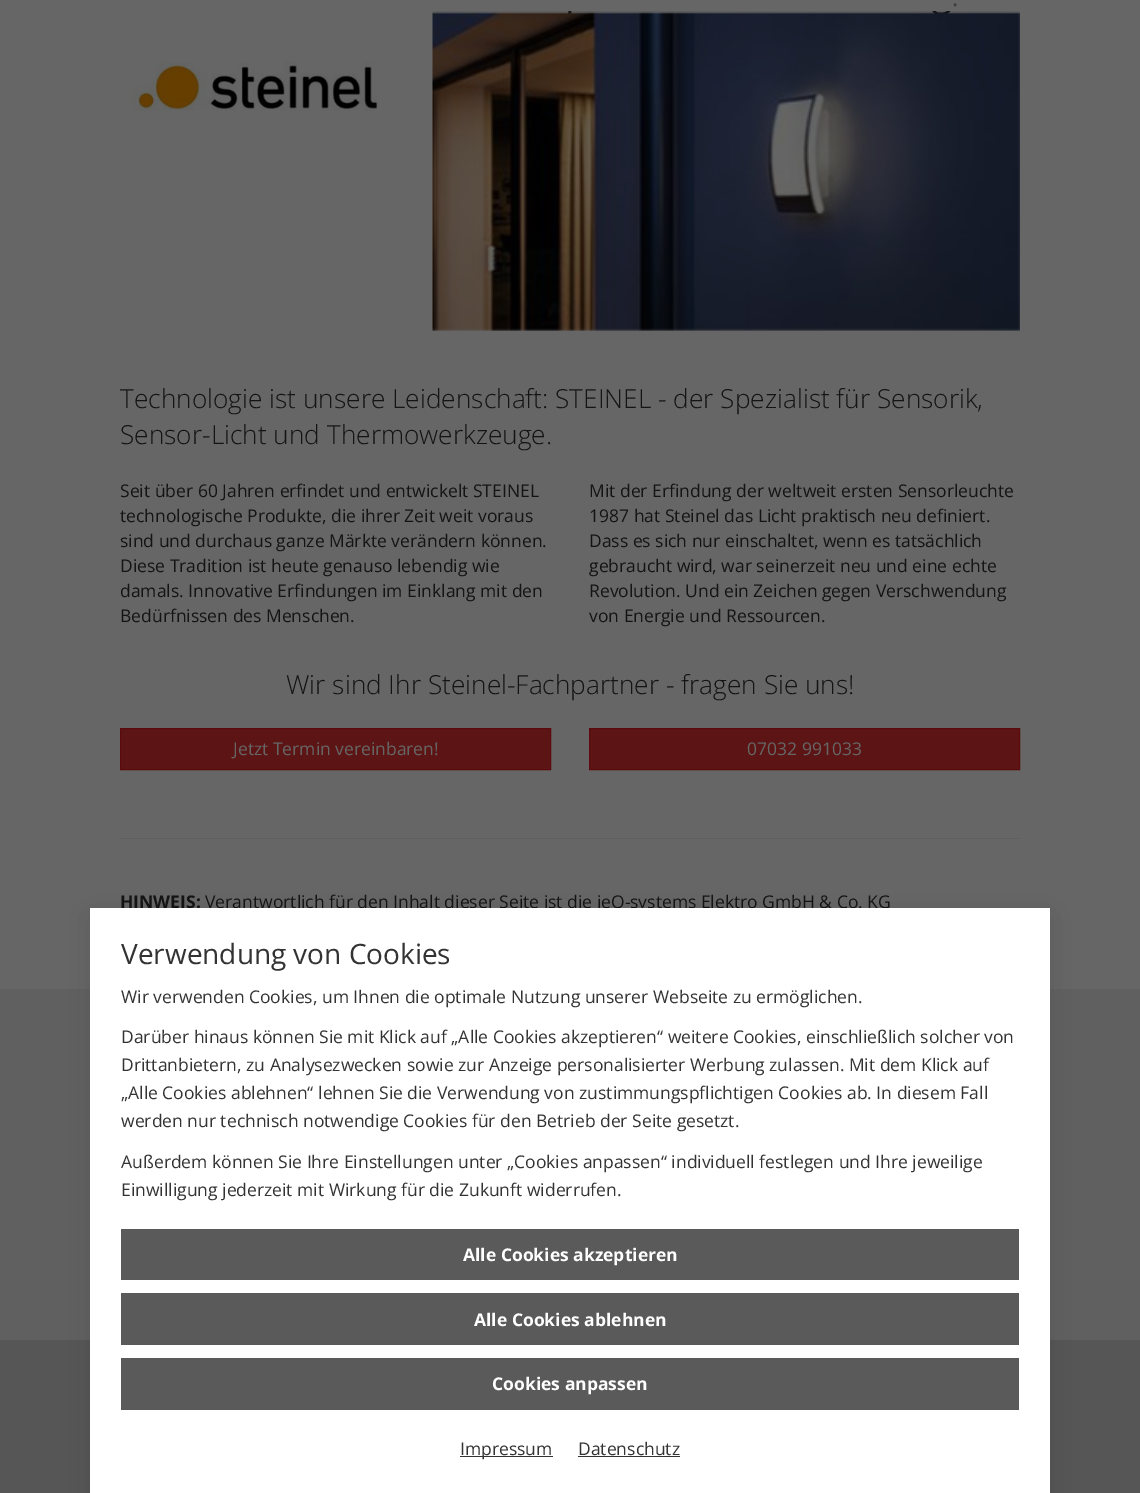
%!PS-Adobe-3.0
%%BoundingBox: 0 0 1140 1493
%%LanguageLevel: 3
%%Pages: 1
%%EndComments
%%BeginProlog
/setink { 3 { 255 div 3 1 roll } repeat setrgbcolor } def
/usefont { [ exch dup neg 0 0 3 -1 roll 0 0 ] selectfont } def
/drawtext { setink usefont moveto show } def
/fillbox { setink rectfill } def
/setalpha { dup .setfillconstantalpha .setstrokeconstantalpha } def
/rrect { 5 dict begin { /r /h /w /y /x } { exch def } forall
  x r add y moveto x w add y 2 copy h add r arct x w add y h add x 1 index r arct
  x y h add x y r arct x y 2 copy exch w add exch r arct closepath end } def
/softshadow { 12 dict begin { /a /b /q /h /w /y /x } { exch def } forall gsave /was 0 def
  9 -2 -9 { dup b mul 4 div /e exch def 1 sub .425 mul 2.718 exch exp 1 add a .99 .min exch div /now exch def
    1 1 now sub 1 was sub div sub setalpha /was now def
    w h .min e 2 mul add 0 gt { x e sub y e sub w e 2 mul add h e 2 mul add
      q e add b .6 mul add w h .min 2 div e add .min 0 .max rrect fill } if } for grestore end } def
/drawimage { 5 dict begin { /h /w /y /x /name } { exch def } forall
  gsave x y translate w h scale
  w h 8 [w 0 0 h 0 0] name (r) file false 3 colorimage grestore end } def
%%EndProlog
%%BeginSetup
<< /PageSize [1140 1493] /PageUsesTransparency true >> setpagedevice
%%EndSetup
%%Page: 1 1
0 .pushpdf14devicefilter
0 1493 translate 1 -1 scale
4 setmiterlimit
0 0 1140 1493 102 102 102 fillbox
(.) 952 6 /OpenSans-Regular 24 61 61 61 drawtext
(assets/img1.rgb) 132 61 246 50 drawimage
(assets/img2.rgb) 432 11 588 320 drawimage
(Technologie ist unsere Leidenschaft: STEINEL - der Spezialist für Sensorik,) 120 408 /OpenSans-Light 26.25 20 20 20 drawtext
(Sensor-Licht und Thermowerkzeuge.) 120 444 /OpenSans-Light 26.25 20 20 20 drawtext
(Seit über 60 Jahren erfindet und entwickelt STEINEL) 120 497 /OpenSans-Regular 17.5 20 20 20 drawtext
(technologische Produkte, die ihrer Zeit weit voraus) 120 522 /OpenSans-Regular 17.5 20 20 20 drawtext
(sind und durchaus ganze Märkte verändern können.) 120 547 /OpenSans-Regular 17.5 20 20 20 drawtext
(Diese Tradition ist heute genauso lebendig wie) 120 572 /OpenSans-Regular 17.5 20 20 20 drawtext
(damals. Innovative Erfindungen im Einklang mit den) 120 597 /OpenSans-Regular 17.5 20 20 20 drawtext
(Bedürfnissen des Menschen.) 120 622 /OpenSans-Regular 17.5 20 20 20 drawtext
(Mit der Erfindung der weltweit ersten Sensorleuchte) 589 497 /OpenSans-Regular 17.5 20 20 20 drawtext
(1987 hat Steinel das Licht praktisch neu definiert.) 589 522 /OpenSans-Regular 17.5 20 20 20 drawtext
(Dass es sich nur einschaltet, wenn es tatsächlich) 589 547 /OpenSans-Regular 17.5 20 20 20 drawtext
(gebraucht wird, war seinerzeit neu und eine echte) 589 572 /OpenSans-Regular 17.5 20 20 20 drawtext
(Revolution. Und ein Zeichen gegen Verschwendung) 589 597 /OpenSans-Regular 17.5 20 20 20 drawtext
(von Energie und Ressourcen.) 589 622 /OpenSans-Regular 17.5 20 20 20 drawtext
(Wir sind Ihr Steinel-Fachpartner - fragen Sie uns!) 286 694 /OpenSans-Light 26.25 20 20 20 drawtext
92 20 20 setink
120.5 728.5 moveto 550.5 728.5 lineto 550.5 769.5 lineto 120.5 769.5 lineto closepath gsave fill grestore
91 11 11 setink
stroke
(Jetzt Termin vereinbaren!) 233 755 /OpenSans-Regular 17.5 102 102 102 drawtext
92 20 20 setink
589.5 728.5 moveto 1019.5 728.5 lineto 1019.5 769.5 lineto 589.5 769.5 lineto closepath gsave fill grestore
91 11 11 setink
stroke
(07032 991033) 747 755 /OpenSans-Regular 17.5 102 102 102 drawtext
120 838 900 1 95 95 95 fillbox
(HINWEIS:) 120 908 /OpenSans-Bold 17.5 20 20 20 drawtext
(Verantwortlich für den Inhalt dieser Seite ist die ieQ-systems Elektro GmbH & Co. KG) 205 908 /OpenSans-Regular 17.5 20 20 20 drawtext
0 989 1140 351 96 96 96 fillbox
0 1340 1140 153 86 86 86 fillbox
0 0 0 setink
90 915 960 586 0 17.5 0.1 softshadow
90 908 960 585 255 255 255 fillbox
(Verwendung von Cookies) 121 964 /OpenSans-Regular 28 51 51 51 drawtext
(Wir verwenden Cookies, um Ihnen die optimale Nutzung unserer Webseite zu ermöglichen.) 121 1003 /OpenSans-Regular 17.5 51 51 51 drawtext
(Darüber hinaus können Sie mit Klick auf „Alle Cookies akzeptieren“ weitere Cookies, einschließlich solcher von) 121 1043 /OpenSans-Regular 17.5 51 51 51 drawtext
(Drittanbietern, zu Analysezwecken sowie zur Anzeige personalisierter Werbung zulassen. Mit dem Klick auf) 121 1071 /OpenSans-Regular 17.5 51 51 51 drawtext
(„Alle Cookies ablehnen“ lehnen Sie die Verwendung von zustimmungspflichtigen Cookies ab. In diesem Fall) 121 1099 /OpenSans-Regular 17.5 51 51 51 drawtext
(werden nur technisch notwendige Cookies für den Betrieb der Seite gesetzt.) 121 1127 /OpenSans-Regular 17.5 51 51 51 drawtext
(Außerdem können Sie Ihre Einstellungen unter „Cookies anpassen“ individuell festlegen und Ihre jeweilige) 121 1168 /OpenSans-Regular 17.5 51 51 51 drawtext
(Einwilligung jederzeit mit Wirkung für die Zukunft widerrufen.) 121 1196 /OpenSans-Regular 17.5 51 51 51 drawtext
121 1229 898 51 90 90 90 fillbox
(Alle Cookies akzeptieren) 463 1261 /OpenSans-Bold 17.5 255 255 255 drawtext
121 1293 898 52 90 90 90 fillbox
(Alle Cookies ablehnen) 474 1326 /OpenSans-Bold 17.5 255 255 255 drawtext
121 1358 898 52 90 90 90 fillbox
(Cookies anpassen) 492 1390 /OpenSans-Bold 17.5 255 255 255 drawtext
460 1456 93 1 51 51 51 fillbox
(Impressum) 460 1455 /OpenSans-Regular 17.5 51 51 51 drawtext
(Datenschutz) 578 1455 /OpenSans-Regular 17.5 51 51 51 drawtext
578 1456 102 1 51 51 51 fillbox
.poppdf14devicefilter showpage
%%EOF
